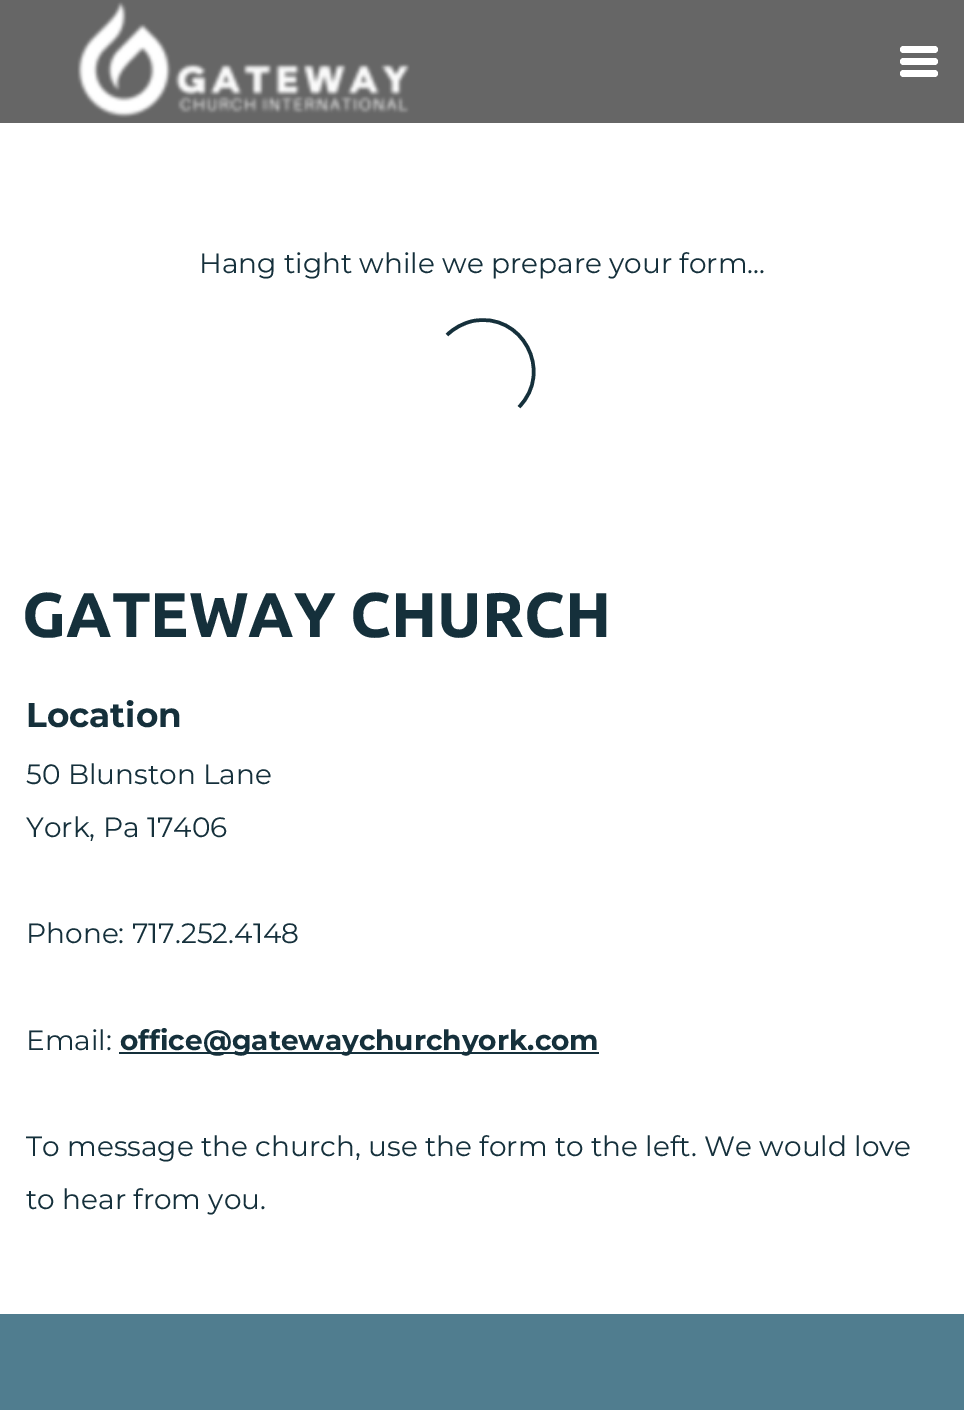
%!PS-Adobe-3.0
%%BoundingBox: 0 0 964 1410
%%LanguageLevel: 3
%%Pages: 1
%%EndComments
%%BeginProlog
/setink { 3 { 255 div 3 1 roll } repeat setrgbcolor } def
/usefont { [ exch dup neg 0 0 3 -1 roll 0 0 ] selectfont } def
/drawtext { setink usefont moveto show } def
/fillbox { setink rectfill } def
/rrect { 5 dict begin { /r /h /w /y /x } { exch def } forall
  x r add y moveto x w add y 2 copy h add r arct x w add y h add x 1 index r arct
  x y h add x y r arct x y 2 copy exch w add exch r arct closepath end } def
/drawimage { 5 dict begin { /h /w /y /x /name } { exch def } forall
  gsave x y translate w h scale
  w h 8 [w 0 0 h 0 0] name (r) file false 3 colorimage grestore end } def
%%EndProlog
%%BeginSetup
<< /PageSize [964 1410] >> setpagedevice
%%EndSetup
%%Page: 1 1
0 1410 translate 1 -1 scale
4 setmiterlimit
0 0 964 1410 80 125 143 fillbox
0 0 964 123 102 102 102 fillbox
(assets/img1.rgb) 77 1 333 117 drawimage
255 255 255 setink
900 46 38 7 3.5 rrect fill
900 58 38 7 3.5 rrect fill
900 70 38 7 3.5 rrect fill
0 123 964 1191 255 255 255 fillbox
(Hang tight while we prepare your form...) 199 273 /Montserrat-Regular 28 21 48 59 drawtext
3.5 setlinewidth
447 335 moveto 454 328 463.5 323 473 321 curveto 522 311.5 554 371.5 519 407 curveto stroke
(GATEWAY CHURCH) 22 637 /Ubuntu-Bold 63 21 48 59 drawtext
(Location) 26 727 /Montserrat-Bold 34.25 21 48 59 drawtext
(50 Blunston Lane) 26 784 /Montserrat-Regular 28 21 48 59 drawtext
(York, Pa 17406) 26 837 /Montserrat-Regular 28 21 48 59 drawtext
(Phone: 717.252.4148) 26 943 /Montserrat-Regular 28 21 48 59 drawtext
(Email:) 26 1050 /Montserrat-Regular 28 21 48 59 drawtext
119 1052 480 2 21 48 59 fillbox
(office@gatewaychurchyork.com) 120 1050 /Montserrat-Bold 28 21 48 59 drawtext
(To message the church, use the form to the left. We would love) 26 1156 /Montserrat-Regular 28 21 48 59 drawtext
(to hear from you.) 26 1209 /Montserrat-Regular 28 21 48 59 drawtext
showpage
%%EOF
